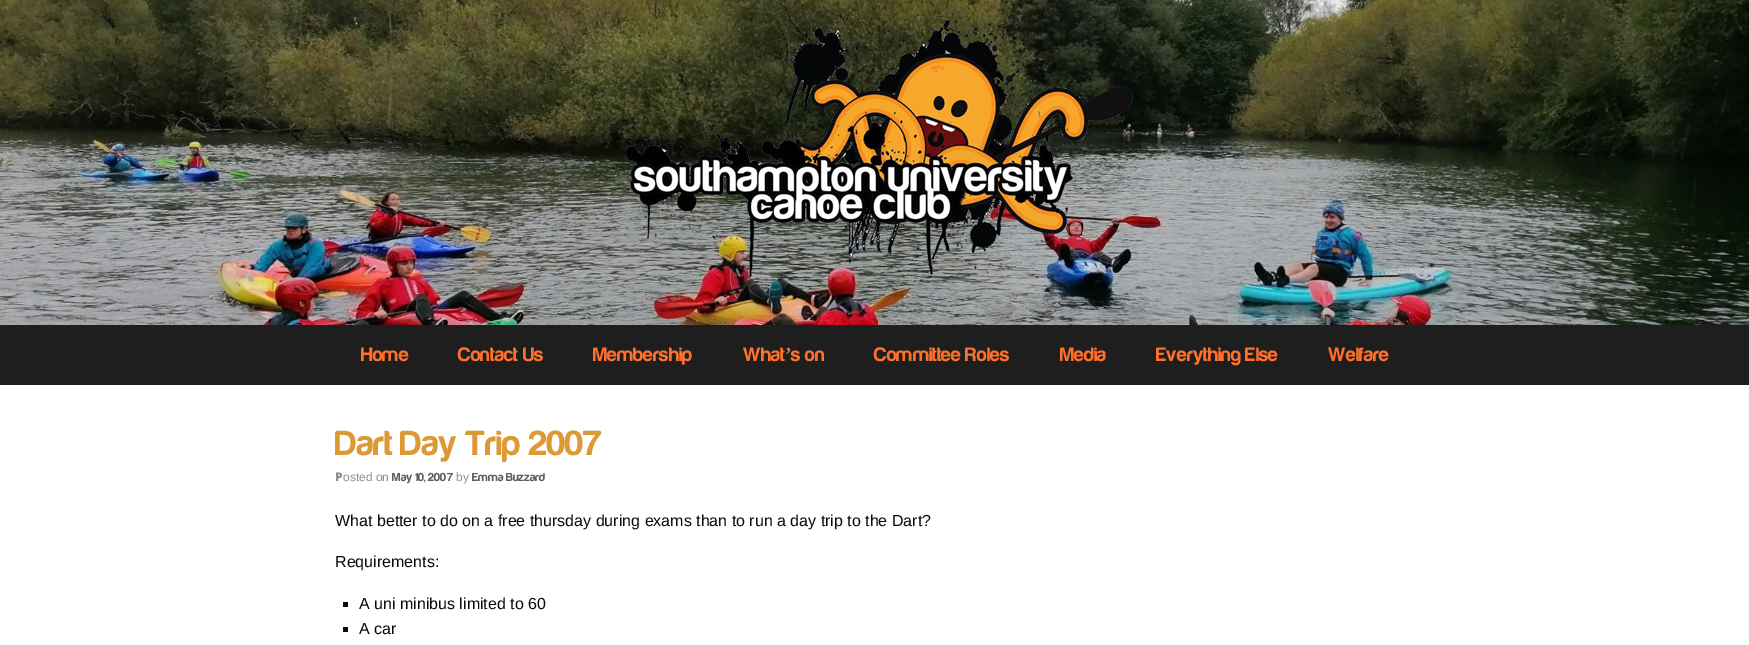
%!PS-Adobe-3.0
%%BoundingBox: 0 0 1749 645
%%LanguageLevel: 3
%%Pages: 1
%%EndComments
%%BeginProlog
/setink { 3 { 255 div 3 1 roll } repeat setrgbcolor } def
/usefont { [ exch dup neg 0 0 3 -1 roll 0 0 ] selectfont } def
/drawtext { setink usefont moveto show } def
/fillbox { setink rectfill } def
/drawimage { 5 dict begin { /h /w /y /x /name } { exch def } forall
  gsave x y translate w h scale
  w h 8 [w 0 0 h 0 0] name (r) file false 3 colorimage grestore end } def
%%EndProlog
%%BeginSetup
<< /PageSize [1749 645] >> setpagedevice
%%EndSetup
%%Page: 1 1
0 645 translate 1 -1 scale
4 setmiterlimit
0 0 1749 645 255 255 255 fillbox
(assets/img1.rgb) 0 0 1749 325 drawimage
(assets/img2.rgb) 623 9 510 285 drawimage
0 325 1749 60 30 30 30 fillbox
(Home) 361 361 /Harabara-Bold 20 255 113 43 drawtext
(Contact Us) 458 361 /Harabara-Bold 20 255 113 43 drawtext
(Membership) 593 361 /Harabara-Bold 20 255 113 43 drawtext
(What) 743 361 /Harabara-Bold 20 255 113 43 drawtext
(’) 785 361 /LiberationSerif-Bold 20 255 113 43 drawtext
(s on) 791 361 /Harabara-Bold 20 255 113 43 drawtext
(Committee Roles) 874 361 /Harabara-Bold 20 255 113 43 drawtext
(Media) 1060 361 /Harabara-Bold 20 255 113 43 drawtext
(Everything Else) 1156 361 /Harabara-Bold 20 255 113 43 drawtext
(Welfare) 1328 361 /Harabara-Bold 20 255 113 43 drawtext
(Dart Day Trip 2007) 335 455 /Harabara-Bold 36 221 153 51 drawtext
(P) 335 481 /NotoSans-Black 12 143 143 143 drawtext
(osted on) 343 481 /LiberationSans-Regular 12 143 143 143 drawtext
(May 10, 2007) 392 481 /Harabara-Bold 12 94 94 94 drawtext
(by) 456 481 /LiberationSans-Regular 12 143 143 143 drawtext
(Emma Buzzard) 472 481 /Harabara-Bold 12 94 94 94 drawtext
(What better to do on a free thursday during exams than to run a day trip to the Dart?) 335 526 /LiberationSans-Regular 16 10 10 10 drawtext
(Requirements:) 335 567 /LiberationSans-Regular 16 10 10 10 drawtext
343 602 5 5 10 10 10 fillbox
(A uni minibus limited to 60) 359 609 /LiberationSans-Regular 16 10 10 10 drawtext
343 627 5 5 10 10 10 fillbox
(A car) 359 634 /LiberationSans-Regular 16 10 10 10 drawtext
showpage
%%EOF
